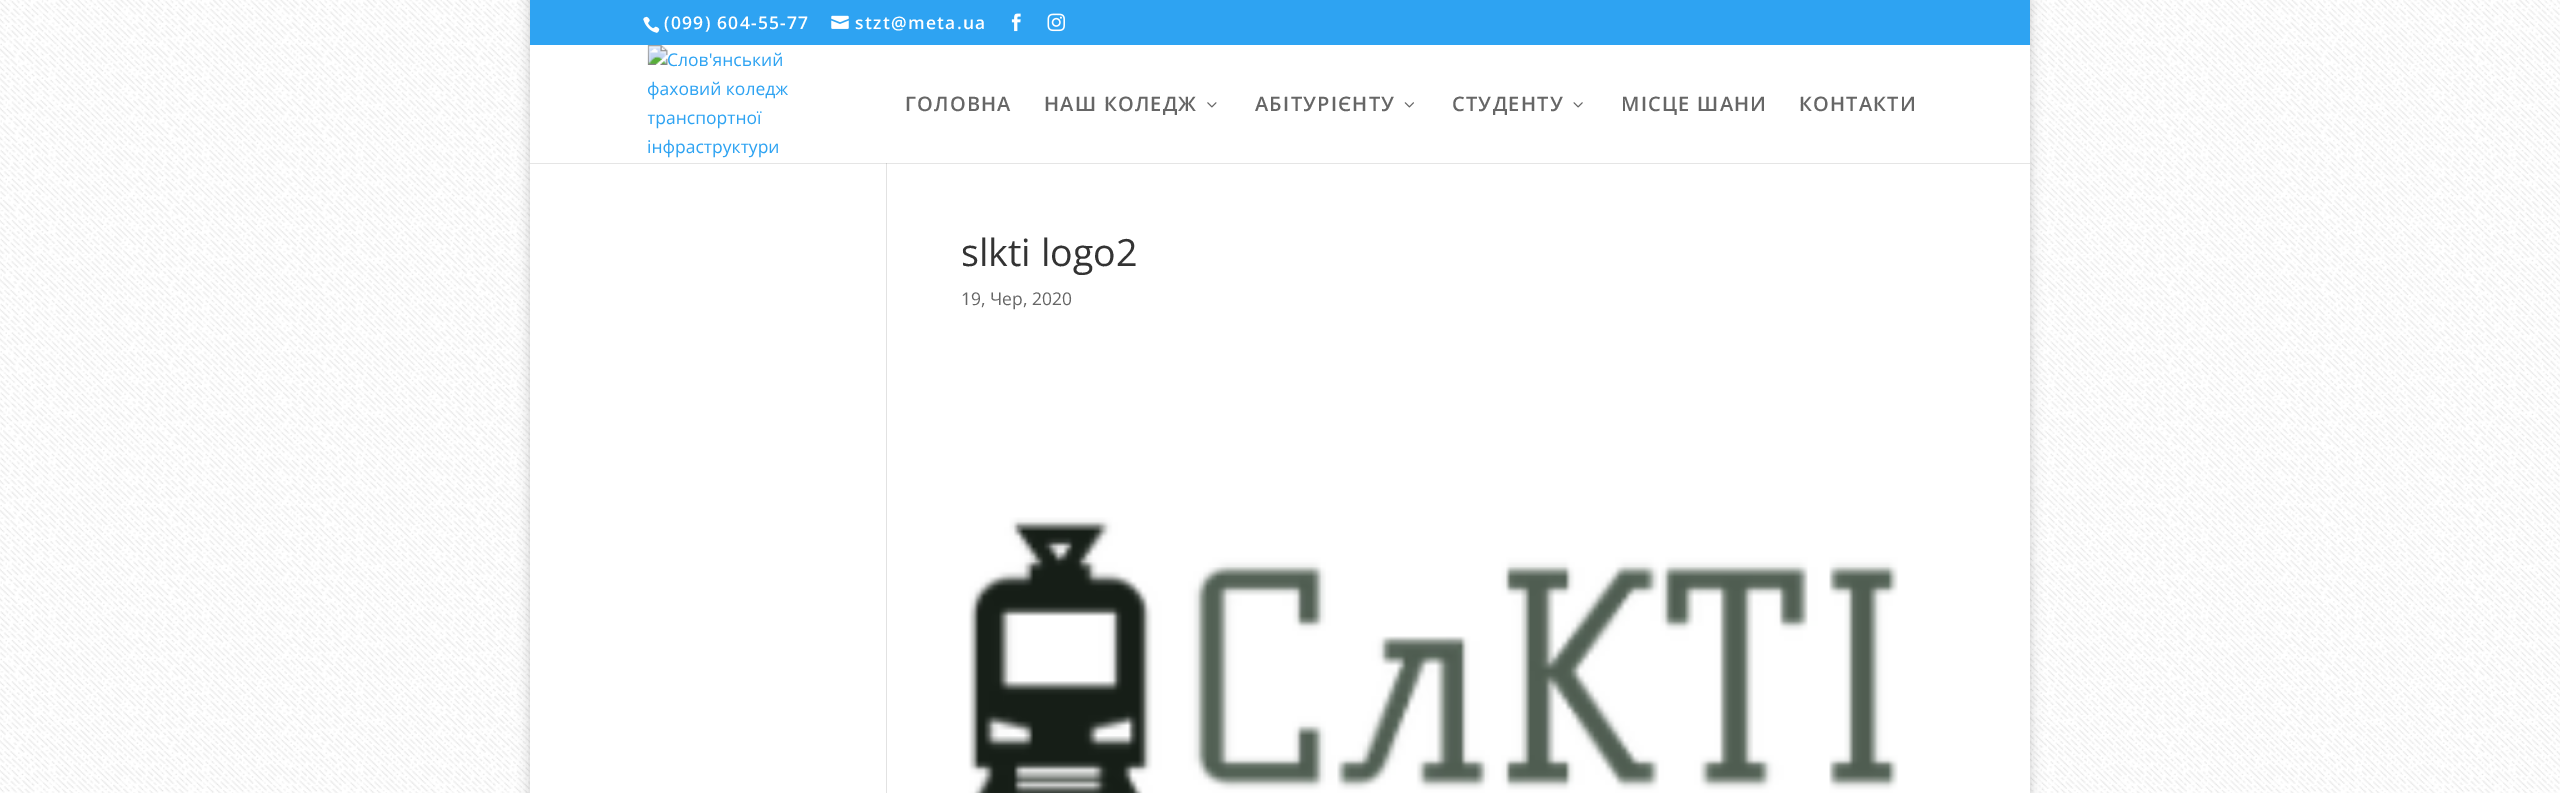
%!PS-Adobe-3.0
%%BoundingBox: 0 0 2560 793
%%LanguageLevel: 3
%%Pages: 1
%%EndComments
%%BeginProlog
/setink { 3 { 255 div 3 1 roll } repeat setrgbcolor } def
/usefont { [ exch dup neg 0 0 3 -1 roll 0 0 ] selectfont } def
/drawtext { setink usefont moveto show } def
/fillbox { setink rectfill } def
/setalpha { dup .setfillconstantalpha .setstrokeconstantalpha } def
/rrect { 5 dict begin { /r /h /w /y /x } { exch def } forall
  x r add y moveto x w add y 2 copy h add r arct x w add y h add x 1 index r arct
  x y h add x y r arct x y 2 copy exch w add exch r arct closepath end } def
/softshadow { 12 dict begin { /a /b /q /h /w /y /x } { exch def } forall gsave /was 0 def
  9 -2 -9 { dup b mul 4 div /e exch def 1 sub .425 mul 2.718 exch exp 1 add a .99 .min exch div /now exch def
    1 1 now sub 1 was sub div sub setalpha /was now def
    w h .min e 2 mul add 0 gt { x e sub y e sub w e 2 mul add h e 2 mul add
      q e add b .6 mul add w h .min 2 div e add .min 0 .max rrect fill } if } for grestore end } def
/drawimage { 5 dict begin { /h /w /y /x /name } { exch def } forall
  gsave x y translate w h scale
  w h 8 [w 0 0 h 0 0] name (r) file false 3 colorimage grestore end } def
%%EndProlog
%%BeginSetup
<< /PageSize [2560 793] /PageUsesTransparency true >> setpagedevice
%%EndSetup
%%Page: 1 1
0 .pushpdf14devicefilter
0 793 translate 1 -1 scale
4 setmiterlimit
0 0 2560 793 255 255 255 fillbox
(assets/img1.rgb) 0 0 2560 793 drawimage
0 0 0 setink
530 -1 1500 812 0 6 0.2 softshadow
530 0 1500 45 46 163 242 fillbox
(assets/img2.rgb) 643 16 17 17 drawimage
/OpenSans-SemiBold 17.5 usefont
255 255 255 setink
664 29 moveto 1.25 0 (\(099\) 604-55-77) ashow
(assets/img3.rgb) 831 15 18 14 drawimage
855 29 moveto 1.25 0 (stzt@meta.ua) ashow
(assets/img4.rgb) 1011 13 10 19 drawimage
(assets/img5.rgb) 1047 13 18 19 drawimage
530 163 1500 630 255 255 255 fillbox
886 161 1 632 226 226 226 fillbox
0.1 setalpha
530 163 1500 1 0 0 0 fillbox
1 setalpha
530 45 1500 118 255 255 255 fillbox
(assets/img6.rgb) 647 45 141 113 drawimage
/OpenSans-SemiBold 20 usefont
102 102 102 setink
905 111 moveto 1.25 0 (ГОЛОВНА) ashow
1044 111 moveto 1.25 0 (НАШ КОЛЕДЖ) ashow
(assets/img7.rgb) 1207 102 10 6 drawimage
1255 111 moveto 1.25 0 (АБІТУРІЄНТУ) ashow
(assets/img8.rgb) 1404 102 10 6 drawimage
1452 111 moveto 1.25 0 (СТУДЕНТУ) ashow
(assets/img9.rgb) 1573 102 10 6 drawimage
1621 111 moveto 1.25 0 (МІСЦЕ ШАНИ) ashow
1799 111 moveto 1.25 0 (КОНТАКТИ) ashow
(slkti logo2) 961 266 /OpenSans-Regular 37.5 51 51 51 drawtext
(19, Чер, 2020) 961 305 /OpenSans-Regular 17.5 102 102 102 drawtext
(assets/img10.rgb) 968 517 930 276 drawimage
.poppdf14devicefilter showpage
%%EOF
